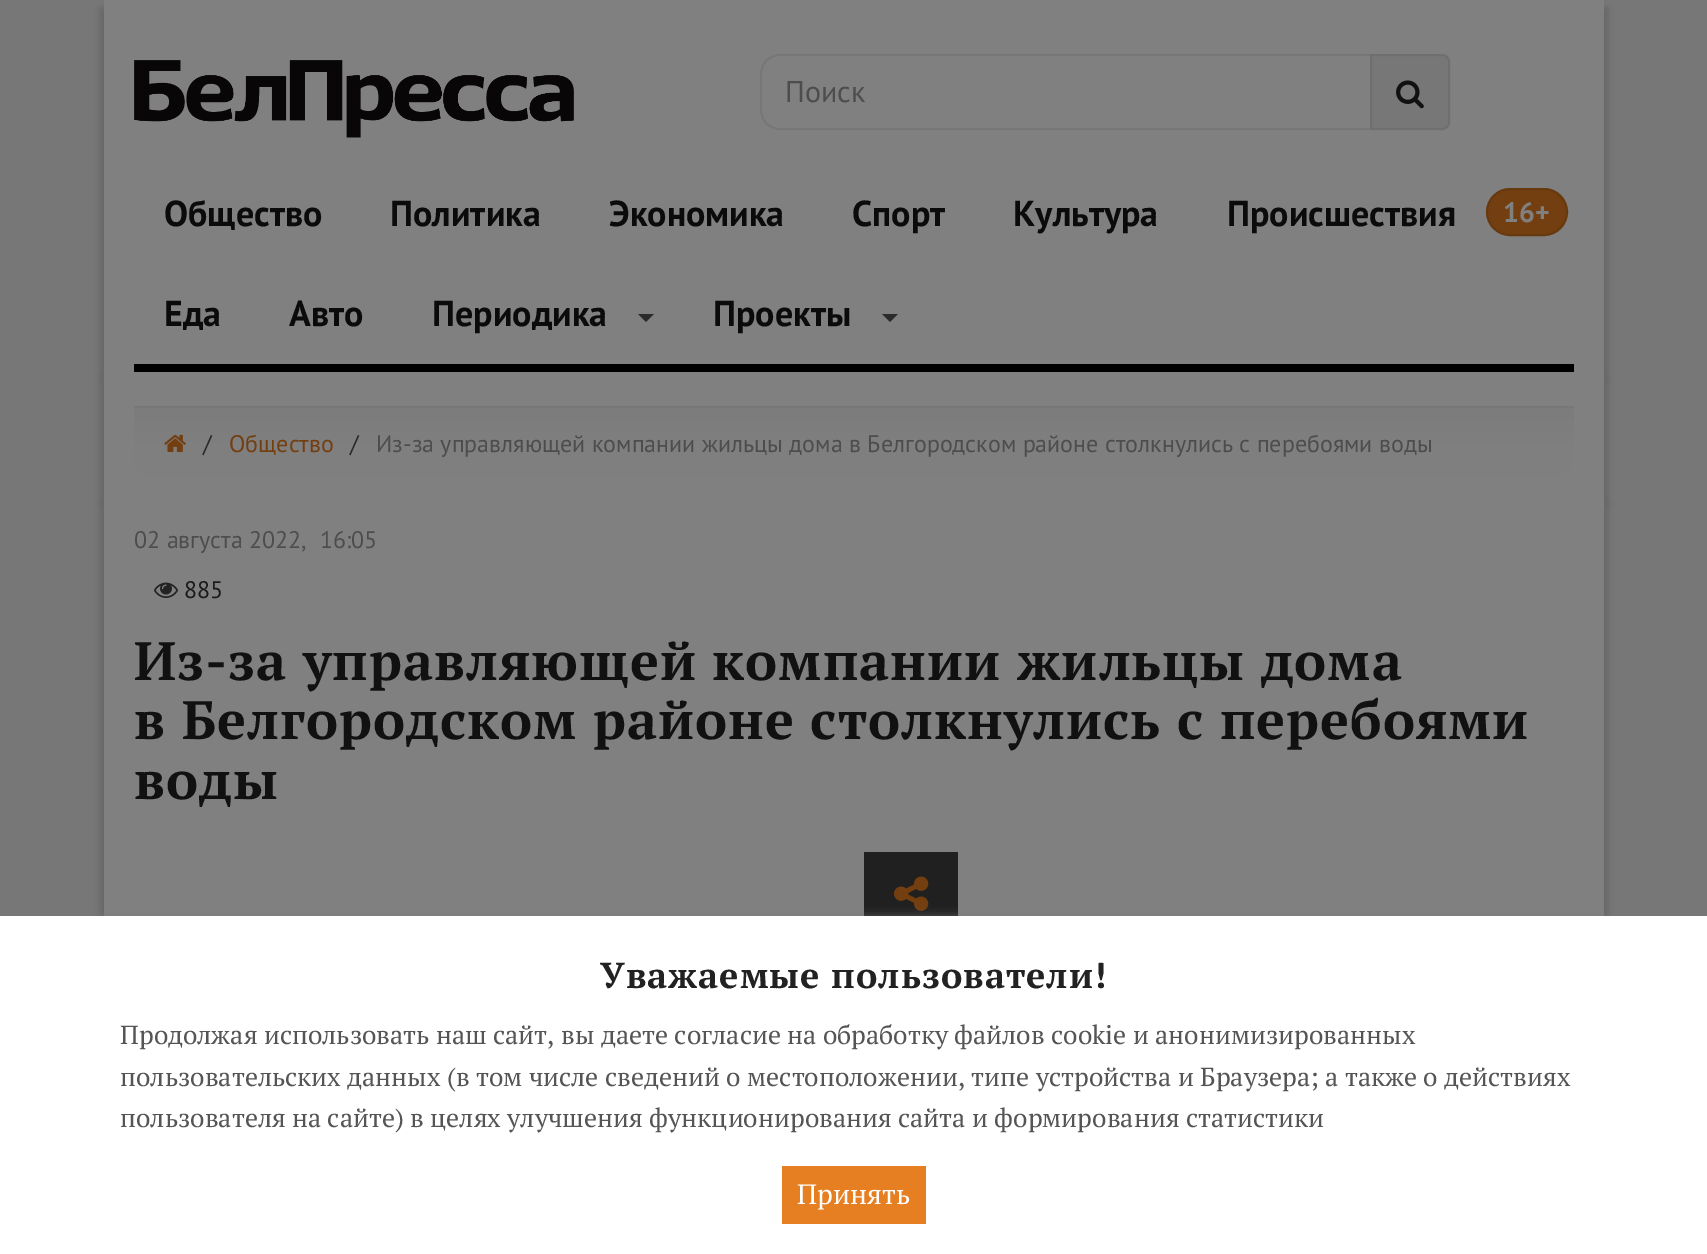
%!PS-Adobe-3.0
%%BoundingBox: 0 0 1707 1254
%%LanguageLevel: 3
%%Pages: 1
%%EndComments
%%BeginProlog
/setink { 3 { 255 div 3 1 roll } repeat setrgbcolor } def
/usefont { [ exch dup neg 0 0 3 -1 roll 0 0 ] selectfont } def
/drawtext { setink usefont moveto show } def
/fillbox { setink rectfill } def
/setalpha { dup .setfillconstantalpha .setstrokeconstantalpha } def
/rrect { 5 dict begin { /r /h /w /y /x } { exch def } forall
  x r add y moveto x w add y 2 copy h add r arct x w add y h add x 1 index r arct
  x y h add x y r arct x y 2 copy exch w add exch r arct closepath end } def
/softshadow { 12 dict begin { /a /b /q /h /w /y /x } { exch def } forall gsave /was 0 def
  9 -2 -9 { dup b mul 4 div /e exch def 1 sub .425 mul 2.718 exch exp 1 add a .99 .min exch div /now exch def
    1 1 now sub 1 was sub div sub setalpha /was now def
    w h .min e 2 mul add 0 gt { x e sub y e sub w e 2 mul add h e 2 mul add
      q e add b .6 mul add w h .min 2 div e add .min 0 .max rrect fill } if } for grestore end } def
/drawimage { 5 dict begin { /h /w /y /x /name } { exch def } forall
  gsave x y translate w h scale
  w h 8 [w 0 0 h 0 0] name (r) file false 3 colorimage grestore end } def
%%EndProlog
%%BeginSetup
<< /PageSize [1707 1254] /PageUsesTransparency true >> setpagedevice
%%EndSetup
%%Page: 1 1
0 .pushpdf14devicefilter
0 1254 translate 1 -1 scale
4 setmiterlimit
0 0 1707 1254 119 119 119 fillbox
0 0 0 setink
100 380 1484 122 0 4 0.15 softshadow
124 380 1484 122 0 4 0.15 softshadow
104 386 1500 110 128 128 128 fillbox
0 0 0 setink
100 8 1484 370 0 4 0.15 softshadow
124 8 1484 370 0 4 0.15 softshadow
104 0 1500 386 128 128 128 fillbox
(assets/img1.rgb) 134 60 440 78 drawimage
119 119 119 setink
780 54 moveto 1370 54 lineto 1370 130 lineto 780 130 lineto 769 130 760 121 760 110 curveto 760 74 lineto 760 63 769 54 780 54 curveto closepath 780 56 moveto 1370 56 lineto 1370 128 lineto 780 128 lineto 770 128 762 120 762 110 curveto 762 74 lineto 762 64 770 56 780 56 curveto closepath eofill
(Поиск) 785 102 /PTSans-Regular 30 77 77 77 drawtext
119 119 119 setink
1370 54 moveto 1442 54 lineto 1446.5 54 1450 57.5 1450 62 curveto 1450 122 lineto 1450 126.5 1446.5 130 1442 130 curveto 1370 130 lineto closepath fill
0.07 setalpha
0 0 0 setink
2 setlinewidth
1371 55 moveto 1442 55 lineto 1446 55 1449 58 1449 62 curveto 1449 122 lineto 1449 126 1446 129 1442 129 curveto 1371 129 lineto closepath stroke
1 setalpha
(assets/img2.rgb) 1396 80 28 29 drawimage
134 364 1440 8 0 0 0 fillbox
(Общество) 164 226 /PTSans-Bold 36 11 11 11 drawtext
(Политика) 390 226 /PTSans-Bold 36 11 11 11 drawtext
(Экономика) 609 226 /PTSans-Bold 36 11 11 11 drawtext
(Спорт) 852 226 /PTSans-Bold 36 11 11 11 drawtext
(Культура) 1013 226 /PTSans-Bold 36 11 11 11 drawtext
(Происшествия) 1227 226 /PTSans-Bold 36 11 11 11 drawtext
(Еда) 164 326 /PTSans-Bold 36 11 11 11 drawtext
(Авто) 289 326 /PTSans-Bold 36 11 11 11 drawtext
(Периодика) 432 326 /PTSans-Bold 36 11 11 11 drawtext
43 43 43 setink
638 314 moveto 654 314 lineto 646 322 lineto closepath fill
(Проекты) 713 326 /PTSans-Bold 36 11 11 11 drawtext
43 43 43 setink
882 314 moveto 898 314 lineto 890 322 lineto closepath fill
115 63 17 setink
1487 189 80 46 23 rrect gsave fill grestore
103 57 15 setink
stroke
(16+) 1503 222 /PTSans-Bold 28 128 128 128 drawtext
gsave 134 408 moveto 1574 408 lineto 1574 456 lineto 1574 467 1565 476 1554 476 curveto 154 476 lineto 143 476 134 467 134 456 curveto closepath clip newpath
<< /ShadingType 2 /ColorSpace /DeviceRGB /Coords [854 476 854 408] /Extend [true true] /Function << /FunctionType 3 /Domain [0 1] /Functions [<< /FunctionType 2 /Domain [0 1] /C0 [0.498 0.498 0.498] /C1 [0.498 0.498 0.498] /N 1 >> << /FunctionType 2 /Domain [0 1] /C0 [0.498 0.498 0.498] /C1 [0.486 0.486 0.486] /N 1 >>] /Bounds [0.5] /Encode [0 1 0 1] >> >> shfill grestore
134 406 1440 2 119 119 119 fillbox
(assets/img3.rgb) 164 434 22 18 drawimage
(/) 203 452 /PTSans-Regular 24 43 43 43 drawtext
(Общество) 229 452 /PTSans-Regular 24 115 63 17 drawtext
(/) 350 452 /PTSans-Regular 24 43 43 43 drawtext
(Из‑за управляющей компании жильцы дома в Белгородском районе столкнулись с перебоями воды) 376 452 /PTSans-Regular 24 77 77 77 drawtext
0 0 0 setink
100 504 1484 678 0 4 0.15 softshadow
124 504 1484 678 0 4 0.15 softshadow
104 496 1500 420 128 128 128 fillbox
(02 августа 2022,  16:05) 134 548 /PTSans-Regular 24 77 77 77 drawtext
(assets/img4.rgb) 154 582 24 16 drawimage
(885) 184 598 /PTSans-Regular 24 27 27 27 drawtext
/PTSerif-Bold 54 usefont
17 17 17 setink
134 680 moveto 1 0 (Из‑за управляющей компании жильцы дома) ashow
134 739 moveto 1 0 (в Белгородском районе столкнулись с перебоями) ashow
134 799 moveto 1 0 (воды) ashow
864 852 94 64 32 32 32 fillbox
(assets/img5.rgb) 894 876 35 35 drawimage
(assets/img6.rgb) 894 876 35 35 drawimage
119 119 119 setink
2 918 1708 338 0 5 1 softshadow
0 916 1707 338 255 255 255 fillbox
/PTSerif-Bold 36 usefont
34 34 34 setink
600 988 moveto 1 0 (Уважаемые пользователи!) ashow
(Продолжая использовать наш сайт, вы даете согласие на обработку файлов cookie и анонимизированных) 120 1044 /PTSerif-Regular 26.1 85 85 85 drawtext
(пользовательских данных \(в том числе сведений о местоположении, типе устройства и Браузера; а также о действиях) 120 1086 /PTSerif-Regular 26.1 85 85 85 drawtext
(пользователя на сайте\) в целях улучшения функционирования сайта и формирования статистики) 120 1127 /PTSerif-Regular 26.1 85 85 85 drawtext
782 1166 144 58 230 126 34 fillbox
(Принять) 797 1204 /PTSerif-Regular 28 255 255 255 drawtext
.poppdf14devicefilter showpage
%%EOF
